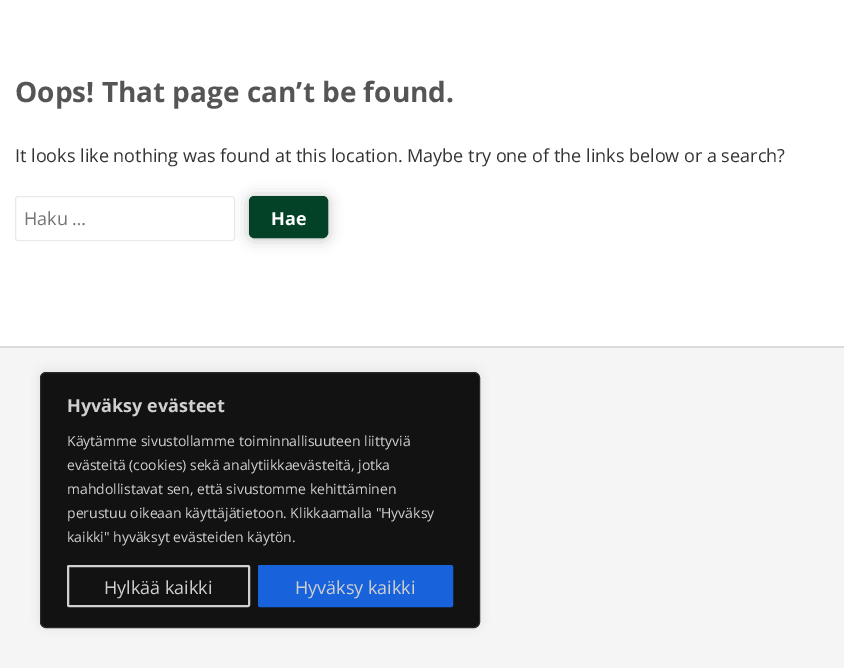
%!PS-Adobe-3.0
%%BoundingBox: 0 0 844 668
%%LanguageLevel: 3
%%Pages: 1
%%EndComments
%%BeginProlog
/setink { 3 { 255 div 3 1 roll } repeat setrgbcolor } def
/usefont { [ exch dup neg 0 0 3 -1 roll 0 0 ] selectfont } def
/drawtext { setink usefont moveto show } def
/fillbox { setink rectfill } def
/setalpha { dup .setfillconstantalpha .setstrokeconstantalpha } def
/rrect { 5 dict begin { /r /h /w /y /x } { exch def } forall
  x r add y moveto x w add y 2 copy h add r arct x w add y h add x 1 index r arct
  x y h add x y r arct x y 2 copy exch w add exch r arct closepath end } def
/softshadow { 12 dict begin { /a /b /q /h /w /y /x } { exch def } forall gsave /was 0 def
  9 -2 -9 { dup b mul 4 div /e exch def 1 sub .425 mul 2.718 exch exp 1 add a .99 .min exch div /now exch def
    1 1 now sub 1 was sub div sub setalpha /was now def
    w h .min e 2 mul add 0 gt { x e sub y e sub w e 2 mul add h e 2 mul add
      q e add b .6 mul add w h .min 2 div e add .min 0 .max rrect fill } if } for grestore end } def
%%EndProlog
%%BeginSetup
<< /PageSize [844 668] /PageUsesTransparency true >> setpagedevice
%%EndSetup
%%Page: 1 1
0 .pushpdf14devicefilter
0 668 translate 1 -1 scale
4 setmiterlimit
0 0 844 668 255 255 255 fillbox
(Oops! That page can’t be found.) 15 102 /OpenSans-Bold 28 85 85 85 drawtext
(It looks like nothing was found at this location. Maybe try one of the links below or a search?) 15 162 /OpenSans-Regular 18 51 51 51 drawtext
234 234 234 setink
15.5 196.5 219 44 2.5 rrect stroke
(Haku …) 24 225 /OpenSans-Regular 18 117 117 117 drawtext
0 0 0 setink
249 197 79 42 5 7 0.25 softshadow
4 66 40 setink
249.5 196.5 78 41 4.5 rrect gsave fill grestore
stroke
(Hae) 271 225 /OpenSans-Bold 18 255 255 255 drawtext
0 348 844 320 245 245 245 fillbox
0 346 844 2 219 219 219 fillbox
172 171 171 setink
40 371 440 256 6 5 0.3 softshadow
18 18 18 setink
40.5 372.5 439 255 5.5 rrect gsave fill grestore
42 42 42 setink
stroke
(Hyväksy evästeet) 67 412 /OpenSans-Bold 18 208 208 208 drawtext
(Käytämme sivustollamme toiminnallisuuteen liittyviä) 67 446 /OpenSans-Regular 14 208 208 208 drawtext
(evästeitä \(cookies\) sekä analytiikkaevästeitä, jotka) 67 470 /OpenSans-Regular 14 208 208 208 drawtext
(mahdollistavat sen, että sivustomme kehittäminen) 67 494 /OpenSans-Regular 14 208 208 208 drawtext
(perustuu oikeaan käyttäjätietoon. Klikkaamalla "Hyväksy) 67 518 /OpenSans-Regular 14 208 208 208 drawtext
(kaikki" hyväksyt evästeiden käytön.) 67 542 /OpenSans-Regular 14 208 208 208 drawtext
2 setlinewidth
68 566 181 40 1 rrect stroke
(Hylkää kaikki) 104 594 /OpenSans-Regular 18 208 208 208 drawtext
24 99 220 setink
259 566 193 40 1 rrect gsave fill grestore
stroke
(Hyväksy kaikki) 295 594 /OpenSans-Regular 18 208 208 208 drawtext
.poppdf14devicefilter showpage
%%EOF
